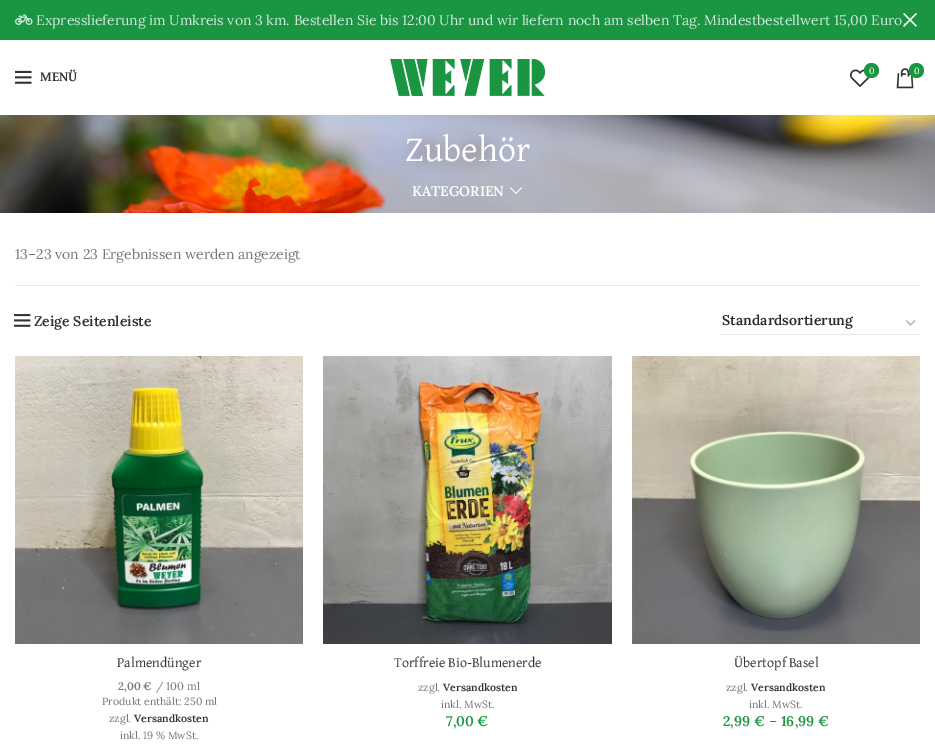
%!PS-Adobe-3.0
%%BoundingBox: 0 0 935 748
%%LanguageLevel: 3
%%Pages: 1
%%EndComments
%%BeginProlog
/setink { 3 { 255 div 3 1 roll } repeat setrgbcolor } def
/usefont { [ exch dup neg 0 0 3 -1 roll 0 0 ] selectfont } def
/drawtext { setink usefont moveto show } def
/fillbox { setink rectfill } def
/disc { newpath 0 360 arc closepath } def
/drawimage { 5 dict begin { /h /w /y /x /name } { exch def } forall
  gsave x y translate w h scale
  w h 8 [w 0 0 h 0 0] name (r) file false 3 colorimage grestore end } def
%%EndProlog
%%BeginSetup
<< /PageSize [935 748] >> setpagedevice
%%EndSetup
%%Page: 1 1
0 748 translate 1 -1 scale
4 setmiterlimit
0 0 935 748 255 255 255 fillbox
0 0 935 40 26 149 66 fillbox
(assets/img1.rgb) 15 14 18 11 drawimage
(Expresslieferung im Umkreis von 3 km. Bestellen Sie bis 12:00 Uhr und wir liefern noch am selben Tag. Mindestbestellwert 15,00 Euro.) 36 25 /Lora-Regular 14 209 234 217 drawtext
(assets/img2.rgb) 903 13 14 14 drawimage
(assets/img3.rgb) 15 70 17 14 drawimage
(MENÜ) 40 81 /DavidLibre-Bold 14 51 51 51 drawtext
(assets/img4.rgb) 390 59 155 37 drawimage
(assets/img5.rgb) 850 69 20 18 drawimage
26 149 66 setink
871.5 70.5 7.5 disc fill
(0) 869 74 /Lora-Regular 9 255 255 255 drawtext
(assets/img6.rgb) 896 68 18 21 drawimage
26 149 66 setink
916.5 70.5 7.5 disc fill
(0) 914 74 /Lora-Regular 9 255 255 255 drawtext
(assets/img7.rgb) 0 115 935 98 drawimage
(Zubehör) 405 161 /DavidLibre-Regular 36 255 255 255 drawtext
(KATEGORIEN) 412 196 /Lora-SemiBold 14 255 255 255 drawtext
(assets/img8.rgb) 510 187 12 7 drawimage
15 285 905 1 230 230 230 fillbox
(13–23 von 23 Ergebnissen werden angezeigt) 15 259 /Lora-Regular 14 119 119 119 drawtext
(assets/img9.rgb) 14 314 17 13 drawimage
(Zeige Seitenleiste) 34 326 /Lora-SemiBold 14 51 51 51 drawtext
187 187 187 setink
1.4 setlinewidth
906.5 320.5 moveto 910.5 325 lineto 915 320.5 lineto stroke
720 334 200 1 230 230 230 fillbox
(Standardsortierung) 722 325 /Lora-SemiBold 14 45 42 42 drawtext
(assets/img10.rgb) 15 356 288 288 drawimage
(Palmendünger) 117 667 /DavidLibre-Regular 14 51 51 51 drawtext
(2,00 €) 118 690 /Lora-SemiBold 11 119 119 119 drawtext
(/ 100 ml) 156 690 /Lora-Regular 11 119 119 119 drawtext
(Produkt enthält: 250 ml) 102 705 /Lora-Regular 10.5 119 119 119 drawtext
(zzgl.) 109 722 /Lora-Regular 10.5 119 119 119 drawtext
(Versandkosten) 134 722 /Lora-SemiBold 10.5 51 51 51 drawtext
(inkl. 19 % MwSt.) 120 739 /Lora-Regular 10.5 119 119 119 drawtext
(assets/img11.rgb) 323 356 289 288 drawimage
(Torffreie Bio-Blumenerde) 394 667 /DavidLibre-Regular 14 51 51 51 drawtext
(zzgl.) 418 691 /Lora-Regular 10.5 119 119 119 drawtext
(Versandkosten) 443 691 /Lora-SemiBold 10.5 51 51 51 drawtext
(inkl. MwSt.) 441 708 /Lora-Regular 10.5 119 119 119 drawtext
(7,00 €) 446 726 /Lora-SemiBold 14 26 149 66 drawtext
(assets/img12.rgb) 632 356 288 288 drawimage
(Übertopf Basel) 734 667 /DavidLibre-Regular 14 51 51 51 drawtext
(zzgl.) 726 691 /Lora-Regular 10.5 119 119 119 drawtext
(Versandkosten) 751 691 /Lora-SemiBold 10.5 51 51 51 drawtext
(inkl. MwSt.) 749 708 /Lora-Regular 10.5 119 119 119 drawtext
(2,99 €) 723 726 /Lora-SemiBold 14 26 149 66 drawtext
(–) 769 726 /Lora-Regular 14 26 149 66 drawtext
(16,99 €) 781 726 /Lora-SemiBold 14 26 149 66 drawtext
showpage
%%EOF
